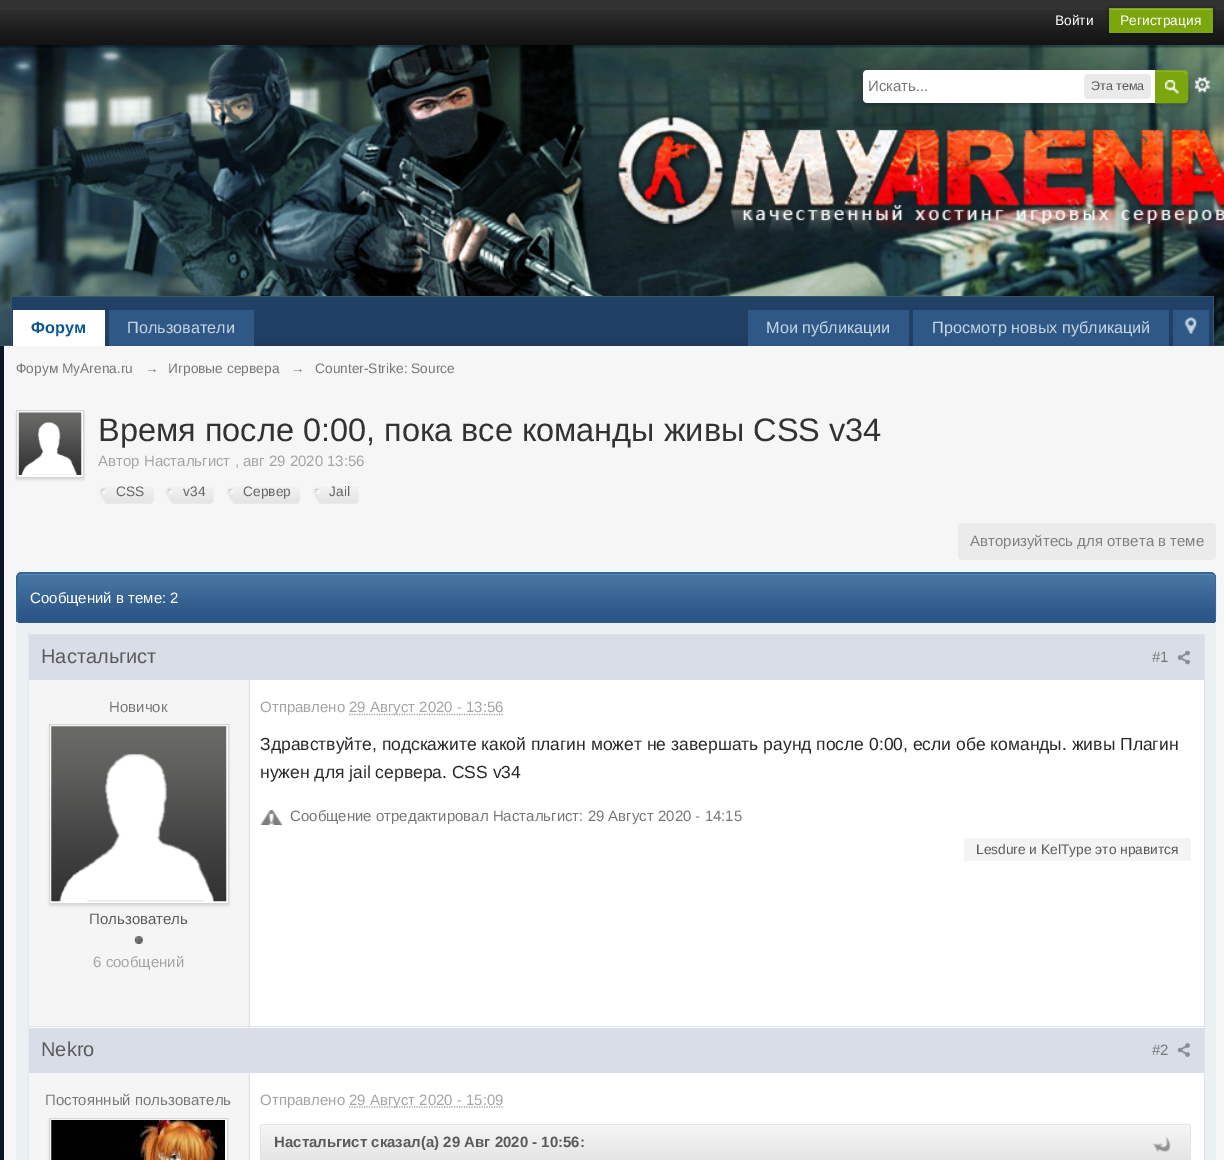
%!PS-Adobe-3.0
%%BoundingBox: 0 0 1224 1160
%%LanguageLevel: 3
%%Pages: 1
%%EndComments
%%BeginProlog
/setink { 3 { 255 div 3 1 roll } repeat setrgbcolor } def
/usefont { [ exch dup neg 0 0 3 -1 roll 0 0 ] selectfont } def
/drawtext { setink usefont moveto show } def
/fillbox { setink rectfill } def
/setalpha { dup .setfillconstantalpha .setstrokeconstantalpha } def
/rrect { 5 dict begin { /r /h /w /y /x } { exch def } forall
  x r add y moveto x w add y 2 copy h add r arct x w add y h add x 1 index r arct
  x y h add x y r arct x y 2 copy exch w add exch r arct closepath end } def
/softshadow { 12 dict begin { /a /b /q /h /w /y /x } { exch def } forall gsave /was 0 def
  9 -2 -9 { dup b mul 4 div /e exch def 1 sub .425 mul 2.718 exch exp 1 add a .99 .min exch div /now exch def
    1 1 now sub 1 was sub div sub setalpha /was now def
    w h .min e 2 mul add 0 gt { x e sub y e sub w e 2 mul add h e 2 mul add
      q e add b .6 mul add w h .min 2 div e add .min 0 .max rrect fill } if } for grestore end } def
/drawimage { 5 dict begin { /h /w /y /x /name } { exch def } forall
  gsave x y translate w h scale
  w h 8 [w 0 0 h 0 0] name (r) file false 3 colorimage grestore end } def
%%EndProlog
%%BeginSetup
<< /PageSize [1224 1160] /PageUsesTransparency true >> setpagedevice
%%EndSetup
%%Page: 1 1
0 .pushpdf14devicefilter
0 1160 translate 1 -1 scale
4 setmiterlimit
0 0 1224 1160 50 50 50 fillbox
(assets/img1.rgb) 0 10 1224 35 drawimage
(Войти) 1055 25 /LiberationSans-Regular 13.75 255 255 255 drawtext
0 0 0 setink
1109 9 104 25 0 2.5 0.4 softshadow
1109 8 104 25 123 166 13 fillbox
1110 9 101 1 149 184 61 fillbox
(Регистрация) 1120 25 /LiberationSans-Regular 13.75 255 255 255 drawtext
(assets/img2.rgb) 0 45 1224 301 drawimage
(assets/img4.rgb) 1194 77 17 16 drawimage
0 0 0 setink
863 73 325 32 5 2.5 0.2 softshadow
255 255 255 setink
867 70 moveto 1183 70 lineto 1186 70 1188 72 1188 75 curveto 1188 98 lineto 1188 101 1186 103 1183 103 curveto 867 103 lineto 865 103 863 101 863 99 curveto 863 74 lineto 863 72 865 70 867 70 curveto closepath fill
(Искать...) 868 91 /LiberationSans-Regular 15 119 119 119 drawtext
234 234 234 setink
1084 74 67 25 4 rrect fill
(Эта тема) 1091 90 /LiberationSans-Regular 12.5 90 90 90 drawtext
123 166 13 setink
1155 70 moveto 1184 70 lineto 1186 70 1188 72 1188 74 curveto 1188 99 lineto 1188 101 1186 103 1184 103 curveto 1155 103 lineto closepath fill
(assets/img3.rgb) 1165 80 14 14 drawimage
149 184 61 setink
1156 72 moveto 1184 72 lineto 1185 72 1186 74 1186 75 curveto 1186 73.5 lineto 1186 72 1185 71 1183.5 71 curveto 1156 71 lineto closepath fill
123 166 13 setink
1155.5 70.5 moveto 1184 70.5 lineto 1186 70.5 1187.5 72 1187.5 74 curveto 1187.5 99 lineto 1187.5 101 1186 102.5 1184 102.5 curveto 1155.5 102.5 lineto closepath stroke
12 297 1201 49 32 64 102 fillbox
11 296 1203 1 54 87 112 fillbox
1213 296 1 50 54 87 112 fillbox
11 296 1 50 54 87 112 fillbox
0 0 0 setink
0 349 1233 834 0 7.5 0.3 softshadow
13 310 92 36 255 255 255 fillbox
(Форум) 31 333 /LiberationSans-Bold 16.25 11 87 148 drawtext
109 310 145 36 47 88 135 fillbox
(Пользователи) 127 333 /LiberationSans-Regular 16.25 197 213 226 drawtext
748 310 161 36 47 88 135 fillbox
(Мои публикации) 766 333 /LiberationSans-Regular 16.25 197 213 226 drawtext
913 310 256 36 47 88 135 fillbox
(Просмотр новых публикаций) 932 333 /LiberationSans-Regular 16.25 197 213 226 drawtext
1173 310 36 36 47 88 135 fillbox
(assets/img5.rgb) 1184 317 13 17 drawimage
4 346 1220 814 246 246 246 fillbox
0 346 4 814 10 22 35 fillbox
(Форум MyArena.ru) 16 373 /LiberationSans-Regular 13.75 119 119 119 drawtext
(→) 145 373 /LiberationSans-Regular 13.75 119 119 119 drawtext
(Игровые сервера) 168 373 /LiberationSans-Regular 13.75 119 119 119 drawtext
(→) 291 373 /LiberationSans-Regular 13.75 119 119 119 drawtext
(Counter-Strike: Source) 315 373 /LiberationSans-Regular 13.75 119 119 119 drawtext
0 0 0 setink
16 413 68 67 0 1 0.1 softshadow
255 255 255 setink
16.5 410.5 moveto 83.5 410.5 lineto 83.5 477.5 lineto 16.5 477.5 lineto closepath gsave fill grestore
213 213 213 setink
stroke
(assets/img6.rgb) 18 412 64 63 drawimage
(Время после 0:00, пока все команды живы CSS v34) 98 441 /LiberationSans-Regular 32.5 50 50 50 drawtext
(Автор Настальгист , авг 29 2020 13:56) 98 466 /LiberationSans-Regular 15 164 164 164 drawtext
(assets/img7.rgb) 98 487 56 17 drawimage
(CSS) 116 496 /LiberationSans-Regular 13.75 101 101 101 drawtext
(assets/img8.rgb) 164 487 50 17 drawimage
(v34) 183 496 /LiberationSans-Regular 13.75 101 101 101 drawtext
(assets/img9.rgb) 225 487 75 17 drawimage
(Сервер) 243 496 /LiberationSans-Regular 13.75 101 101 101 drawtext
(assets/img10.rgb) 312 487 47 17 drawimage
(Jail) 329 496 /LiberationSans-Regular 13.75 101 101 101 drawtext
235 235 235 setink
958 523 258 37 4 rrect fill
(Авторизуйтесь для ответа в теме) 970 546 /LiberationSans-Regular 15 127 127 127 drawtext
44 86 135 setink
22 574 moveto 1211 574 lineto 1213 574 1215 576 1215 578 curveto 1215 623 lineto 18 623 lineto 18 578 lineto 18 576 20 574 22 574 curveto closepath fill
(assets/img11.rgb) 16 573 1201 45 drawimage
82 140 188 setink
21 575 moveto 1211 575 lineto 1213 575 1215 577 1215 579 curveto 1215 576 1214 574 1211 574 curveto 22 574 lineto 19 574 18 576 18 579 curveto 18 577 19 575 21 575 curveto closepath fill
49 104 151 setink
21 572 moveto 1211 572 lineto 1214 572 1216 575 1216 578 curveto 1216 622 lineto 16 622 lineto 16 578 lineto 16 575 18 572 21 572 curveto closepath 21 574 moveto 1211 574 lineto 1213 574 1215 575 1215 578 curveto 1215 622 lineto 18 622 lineto 18 578 lineto 18 575 19 574 21 574 curveto closepath eofill
(Сообщений в теме: 2) 30 603 /LiberationSans-Regular 15 255 255 255 drawtext
16 623 1200 537 235 240 243 fillbox
29 680 1175 480 255 255 255 fillbox
219 228 239 setink
28.5 634.5 1176 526 rectstroke
29 1026 1175 1 214 226 235 fillbox
(assets/img12.rgb) 28 635 222 392 drawimage
29 635 1175 45 216 221 232 fillbox
(Настальгист) 41 663 /LiberationSans-Regular 20 90 90 90 drawtext
(#1) 1152 662 /LiberationSans-Regular 15 119 119 119 drawtext
(assets/img13.rgb) 1177 650 13 15 drawimage
(Новичок) 109 712 /LiberationSans-Regular 15 119 119 119 drawtext
0 0 0 setink
49 726 180 180 0 1 0.1 softshadow
255 255 255 setink
49.5 724.5 moveto 228.5 724.5 lineto 228.5 903.5 lineto 49.5 903.5 lineto closepath gsave fill grestore
213 213 213 setink
stroke
(assets/img14.rgb) 51 726 176 176 drawimage
(Пользователь) 89 924 /LiberationSans-Regular 15 90 90 90 drawtext
(assets/img15.rgb) 134 936 9 8 drawimage
(6 сообщений) 93 967 /LiberationSans-Regular 15 164 164 164 drawtext
(Отправлено) 260 712 /LiberationSans-Regular 15 164 164 164 drawtext
1.2 setlinewidth
[1.25 1.25] 0 setdash
349 714.5 moveto 504 714.5 lineto stroke
(29 Август 2020 - 13:56) 349 712 /LiberationSans-Regular 15 164 164 164 drawtext
(Здравствуйте, подскажите какой плагин может не завершать раунд после 0:00, если обе команды. живы Плагин) 260 750 /LiberationSans-Regular 17.5 40 40 40 drawtext
(нужен для jail сервера. CSS v34) 260 778 /LiberationSans-Regular 17.5 40 40 40 drawtext
(assets/img16.rgb) 260 810 23 15 drawimage
(Сообщение отредактировал Настальгист: 29 Август 2020 - 14:15) 290 821 /LiberationSans-Regular 15 119 119 119 drawtext
244 244 244 setink
964 838 227 23 2.5 rrect fill
(Lesdure и KelType это нравится) 976 854 /LiberationSans-Regular 13.75 90 90 90 drawtext
(assets/img17.rgb) 28 1027 222 133 drawimage
29 1028 1175 45 216 221 232 fillbox
(Nekro) 41 1056 /LiberationSans-Regular 20 90 90 90 drawtext
(#2) 1152 1055 /LiberationSans-Regular 15 119 119 119 drawtext
(assets/img18.rgb) 1177 1043 13 14 drawimage
(Постоянный пользователь) 45 1105 /LiberationSans-Regular 15 119 119 119 drawtext
0 0 0 setink
49 1120 179 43 0 1 0.1 softshadow
255 255 255 setink
49.5 1118.5 moveto 227.5 1118.5 lineto 227.5 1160.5 lineto 49.5 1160.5 lineto closepath gsave fill grestore
213 213 213 setink
1 setlinewidth
[] 0 setdash
stroke
(assets/img19.rgb) 51 1120 174 40 drawimage
(Отправлено) 260 1105 /LiberationSans-Regular 15 164 164 164 drawtext
1.2 setlinewidth
[1.25 1.25] 0 setdash
349 1107 moveto 504 1107 lineto stroke
(29 Август 2020 - 15:09) 349 1105 /LiberationSans-Regular 15 164 164 164 drawtext
gsave 261 1125 moveto 1190 1125 lineto 1190 1160 lineto 261 1160 lineto closepath clip newpath
<< /ShadingType 2 /ColorSpace /DeviceRGB /Coords [261 1125 261 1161] /Extend [true true] /Function << /FunctionType 2 /Domain [0 1] /C0 [0.965 0.965 0.965] /C1 [0.898 0.898 0.898] /N 1 >> >> shfill grestore
261 1124 929 1 229 229 229 fillbox
1190 1125 1 35 229 229 229 fillbox
260 1125 1 35 229 229 229 fillbox
(Настальгист сказал\(а\) 29 Авг 2020 - 10:56:) 274 1147 /LiberationSans-Bold 15 90 90 90 drawtext
(assets/img20.rgb) 1152 1136 19 17 drawimage
.poppdf14devicefilter showpage
%%EOF
